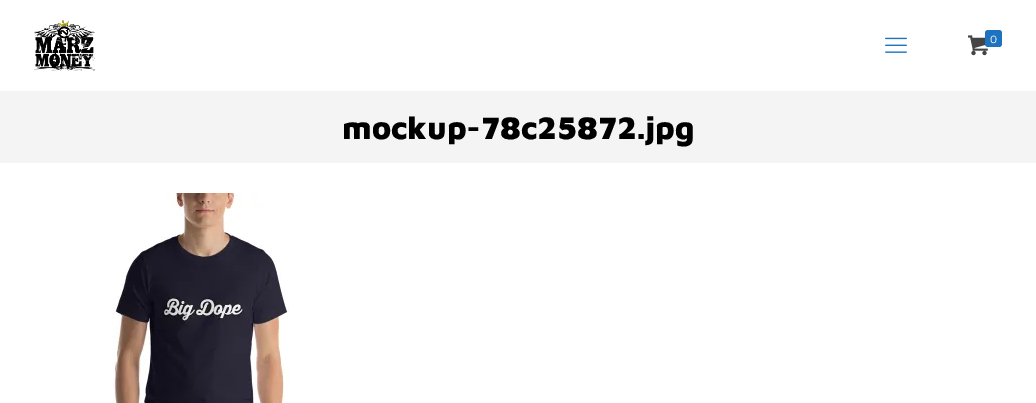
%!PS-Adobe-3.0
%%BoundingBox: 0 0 1036 403
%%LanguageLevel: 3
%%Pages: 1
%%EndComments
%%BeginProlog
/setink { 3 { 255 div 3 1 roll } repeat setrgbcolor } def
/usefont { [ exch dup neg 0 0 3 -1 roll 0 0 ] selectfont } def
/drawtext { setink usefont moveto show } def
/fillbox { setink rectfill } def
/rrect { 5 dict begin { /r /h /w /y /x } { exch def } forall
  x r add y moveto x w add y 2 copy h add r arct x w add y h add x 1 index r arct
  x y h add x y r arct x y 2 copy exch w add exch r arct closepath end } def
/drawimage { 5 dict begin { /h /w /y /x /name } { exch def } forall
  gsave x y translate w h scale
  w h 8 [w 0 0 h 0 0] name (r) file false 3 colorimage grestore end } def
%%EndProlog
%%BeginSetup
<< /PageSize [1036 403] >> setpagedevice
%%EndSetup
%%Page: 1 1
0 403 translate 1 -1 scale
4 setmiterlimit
0 0 1036 403 255 255 255 fillbox
(assets/img1.rgb) 34 20 62 51 drawimage
(assets/img2.rgb) 885 37 22 16 drawimage
(assets/img3.rgb) 968 35 20 21 drawimage
30 115 190 setink
985 30 17 17 3 rrect fill
(0) 990 43 /MavenPro-Regular 11 255 255 255 drawtext
0 91 1036 72 244 244 244 fillbox
(mockup-78c25872.jpg) 342 139 /MavenPro-Black 32 0 0 0 drawtext
(assets/img4.rgb) 113 193 176 210 drawimage
showpage
%%EOF
